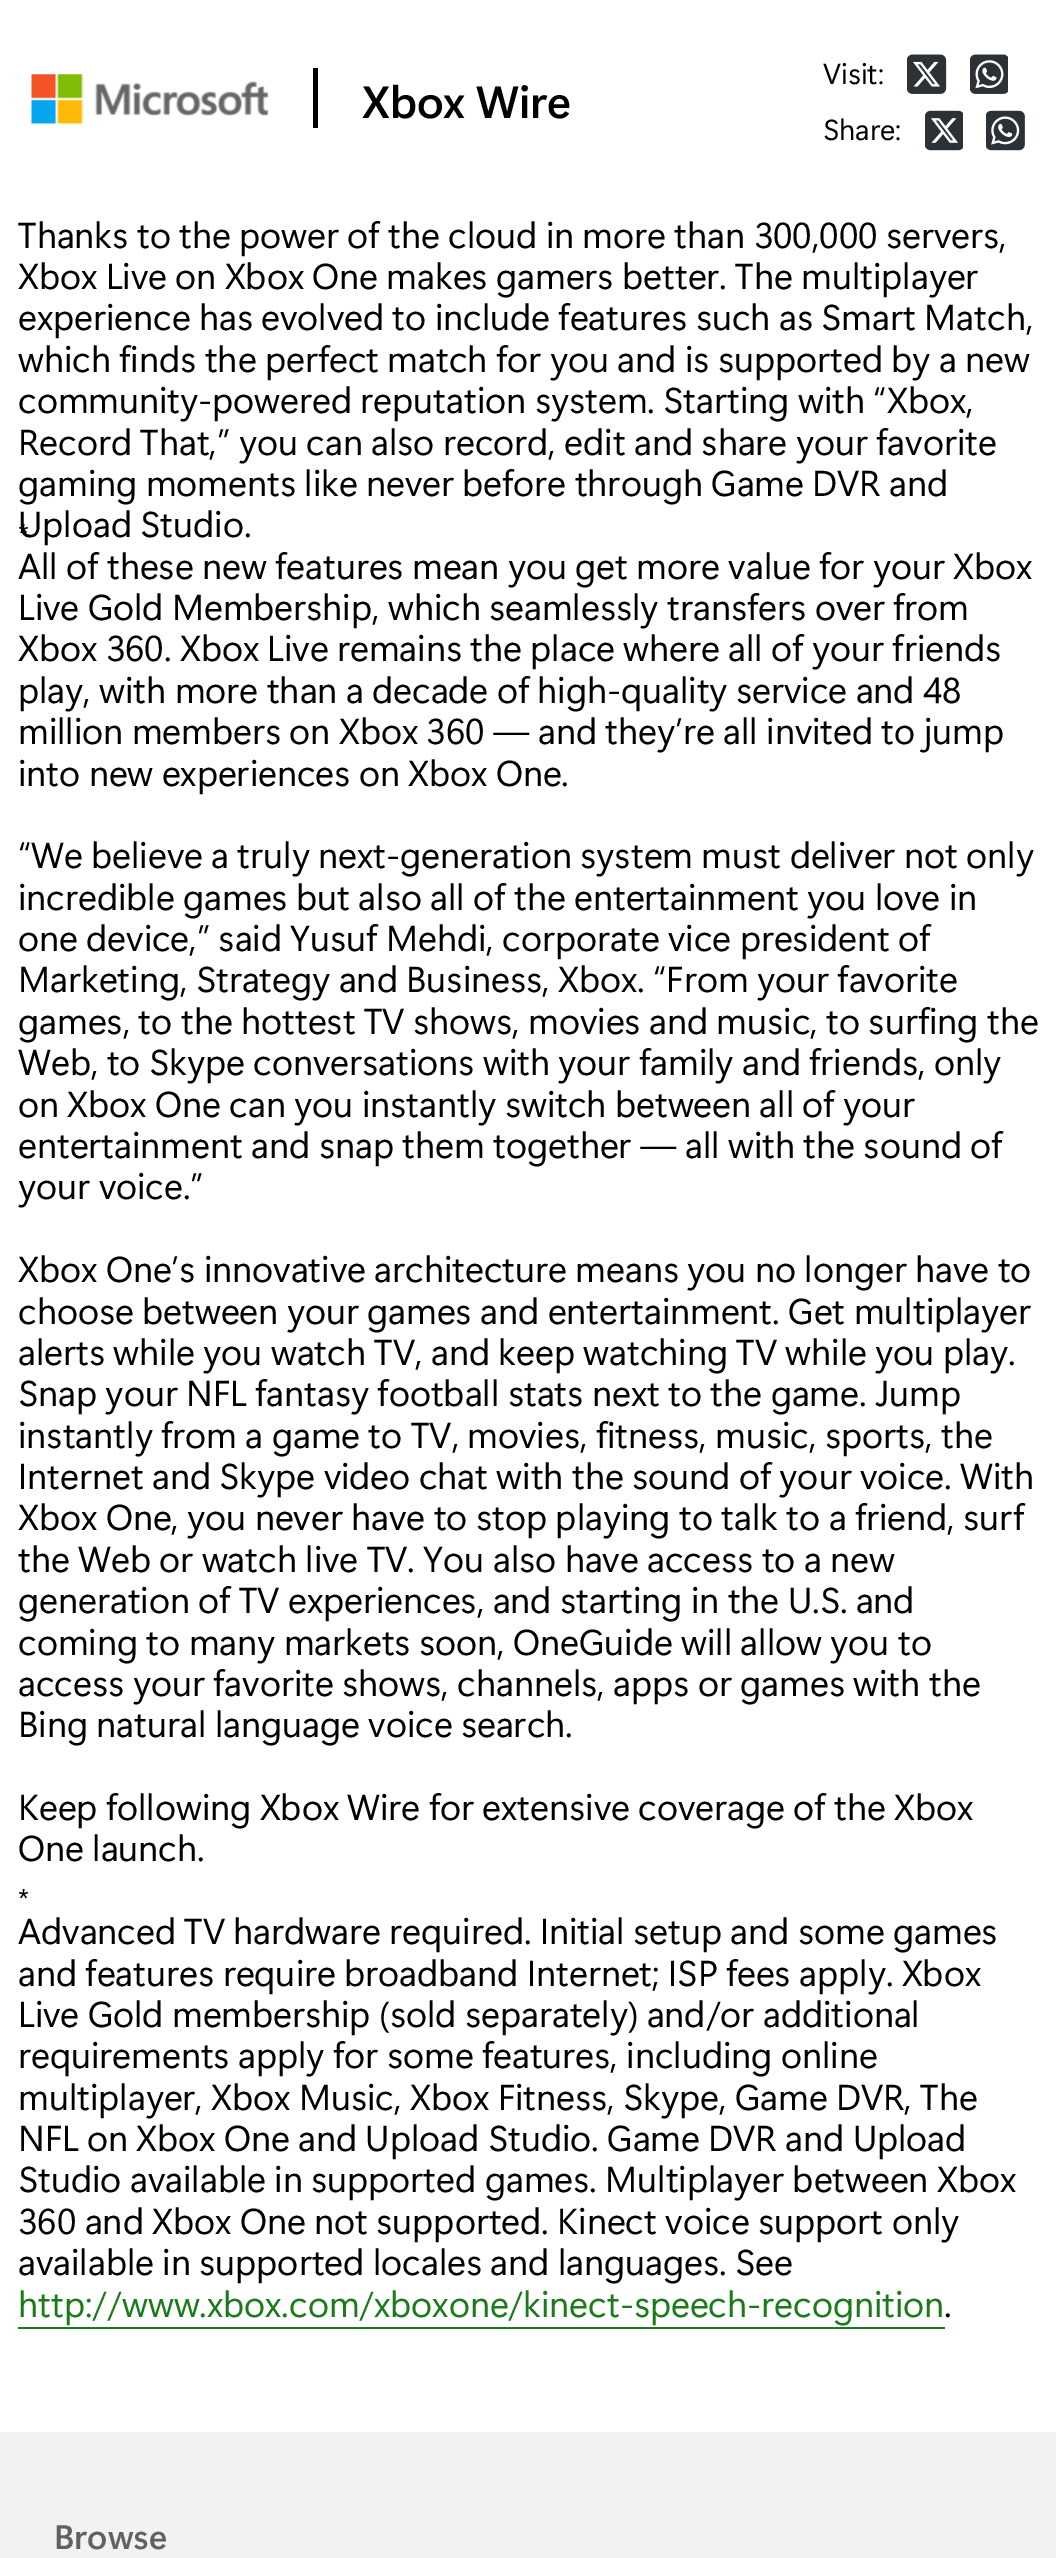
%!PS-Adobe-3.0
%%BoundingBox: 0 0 1056 2558
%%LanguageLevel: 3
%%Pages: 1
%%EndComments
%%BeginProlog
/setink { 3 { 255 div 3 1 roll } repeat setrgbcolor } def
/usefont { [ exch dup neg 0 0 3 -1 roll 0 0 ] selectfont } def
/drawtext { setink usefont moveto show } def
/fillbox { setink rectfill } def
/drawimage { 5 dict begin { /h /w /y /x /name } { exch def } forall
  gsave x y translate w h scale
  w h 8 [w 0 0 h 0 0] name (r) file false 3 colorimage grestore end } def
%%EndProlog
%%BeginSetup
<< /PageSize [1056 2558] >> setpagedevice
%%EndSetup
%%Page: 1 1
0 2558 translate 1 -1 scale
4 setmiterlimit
0 0 1056 2558 255 255 255 fillbox
(assets/img1.rgb) 31 74 238 51 drawimage
(Xbox Wire) 362 118 /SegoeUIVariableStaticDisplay-SemiBold 45 0 0 0 drawtext
313 68 5 60 0 0 0 fillbox
(Visit:) 823 84 /SegoeUIVariableStaticDisplay-Regular 29 0 0 0 drawtext
(assets/img2.rgb) 907 54 40 40 drawimage
(assets/img3.rgb) 970 54 38 40 drawimage
(Share:) 823 140 /SegoeUIVariableStaticDisplay-Regular 29 0 0 0 drawtext
(assets/img4.rgb) 925 110 38 41 drawimage
(assets/img5.rgb) 986 110 39 41 drawimage
(Thanks to the power of the cloud in more than 300,000 servers,) 18 248 /SegoeUIVariableStaticDisplay-Regular 36 0 0 0 drawtext
(Xbox Live on Xbox One makes gamers better. The multiplayer) 18 289 /SegoeUIVariableStaticDisplay-Regular 36 0 0 0 drawtext
(experience has evolved to include features such as Smart Match,) 18 330 /SegoeUIVariableStaticDisplay-Regular 36 0 0 0 drawtext
(which finds the perfect match for you and is supported by a new) 18 372 /SegoeUIVariableStaticDisplay-Regular 36 0 0 0 drawtext
(community-powered reputation system. Starting with “Xbox,) 18 413 /SegoeUIVariableStaticDisplay-Regular 36 0 0 0 drawtext
(Record That,” you can also record, edit and share your favorite) 18 455 /SegoeUIVariableStaticDisplay-Regular 36 0 0 0 drawtext
(gaming moments like never before through Game DVR and) 18 496 /SegoeUIVariableStaticDisplay-Regular 36 0 0 0 drawtext
(Upload Studio.) 18 537 /SegoeUIVariableStaticDisplay-Regular 36 0 0 0 drawtext
(*) 18 543 /SegoeUIVariableStaticDisplay-Regular 27 0 0 0 drawtext
(All of these new features mean you get more value for your Xbox) 18 579 /SegoeUIVariableStaticDisplay-Regular 36 0 0 0 drawtext
(Live Gold Membership, which seamlessly transfers over from) 18 620 /SegoeUIVariableStaticDisplay-Regular 36 0 0 0 drawtext
(Xbox 360. Xbox Live remains the place where all of your friends) 18 661 /SegoeUIVariableStaticDisplay-Regular 36 0 0 0 drawtext
(play, with more than a decade of high-quality service and 48) 18 703 /SegoeUIVariableStaticDisplay-Regular 36 0 0 0 drawtext
(million members on Xbox 360 — and they’re all invited to jump) 18 744 /SegoeUIVariableStaticDisplay-Regular 36 0 0 0 drawtext
(into new experiences on Xbox One.) 18 786 /SegoeUIVariableStaticDisplay-Regular 36 0 0 0 drawtext
(“We believe a truly next-generation system must deliver not only) 18 868 /SegoeUIVariableStaticDisplay-Regular 36 0 0 0 drawtext
(incredible games but also all of the entertainment you love in) 18 910 /SegoeUIVariableStaticDisplay-Regular 36 0 0 0 drawtext
(one device,” said Yusuf Mehdi, corporate vice president of) 18 951 /SegoeUIVariableStaticDisplay-Regular 36 0 0 0 drawtext
(Marketing, Strategy and Business, Xbox. “From your favorite) 18 992 /SegoeUIVariableStaticDisplay-Regular 36 0 0 0 drawtext
(games, to the hottest TV shows, movies and music, to surfing the) 18 1034 /SegoeUIVariableStaticDisplay-Regular 36 0 0 0 drawtext
(Web, to Skype conversations with your family and friends, only) 18 1075 /SegoeUIVariableStaticDisplay-Regular 36 0 0 0 drawtext
(on Xbox One can you instantly switch between all of your) 18 1117 /SegoeUIVariableStaticDisplay-Regular 36 0 0 0 drawtext
(entertainment and snap them together — all with the sound of) 18 1158 /SegoeUIVariableStaticDisplay-Regular 36 0 0 0 drawtext
(your voice.”) 18 1199 /SegoeUIVariableStaticDisplay-Regular 36 0 0 0 drawtext
(Xbox One’s innovative architecture means you no longer have to) 18 1282 /SegoeUIVariableStaticDisplay-Regular 36 0 0 0 drawtext
(choose between your games and entertainment. Get multiplayer) 18 1324 /SegoeUIVariableStaticDisplay-Regular 36 0 0 0 drawtext
(alerts while you watch TV, and keep watching TV while you play.) 18 1365 /SegoeUIVariableStaticDisplay-Regular 36 0 0 0 drawtext
(Snap your NFL fantasy football stats next to the game. Jump) 18 1406 /SegoeUIVariableStaticDisplay-Regular 36 0 0 0 drawtext
(instantly from a game to TV, movies, fitness, music, sports, the) 18 1448 /SegoeUIVariableStaticDisplay-Regular 36 0 0 0 drawtext
(Internet and Skype video chat with the sound of your voice. With) 18 1489 /SegoeUIVariableStaticDisplay-Regular 36 0 0 0 drawtext
(Xbox One, you never have to stop playing to talk to a friend, surf) 18 1530 /SegoeUIVariableStaticDisplay-Regular 36 0 0 0 drawtext
(the Web or watch live TV. You also have access to a new) 18 1572 /SegoeUIVariableStaticDisplay-Regular 36 0 0 0 drawtext
(generation of TV experiences, and starting in the U.S. and) 18 1613 /SegoeUIVariableStaticDisplay-Regular 36 0 0 0 drawtext
(coming to many markets soon, OneGuide will allow you to) 18 1655 /SegoeUIVariableStaticDisplay-Regular 36 0 0 0 drawtext
(access your favorite shows, channels, apps or games with the) 18 1696 /SegoeUIVariableStaticDisplay-Regular 36 0 0 0 drawtext
(Bing natural language voice search.) 18 1737 /SegoeUIVariableStaticDisplay-Regular 36 0 0 0 drawtext
(Keep following Xbox Wire for extensive coverage of the Xbox) 18 1820 /SegoeUIVariableStaticDisplay-Regular 36 0 0 0 drawtext
(One launch.) 18 1861 /SegoeUIVariableStaticDisplay-Regular 36 0 0 0 drawtext
(*) 18 1908 /SegoeUIVariableStaticDisplay-Regular 27 0 0 0 drawtext
(Advanced TV hardware required. Initial setup and some games) 18 1944 /SegoeUIVariableStaticDisplay-Regular 36 0 0 0 drawtext
(and features require broadband Internet; ISP fees apply. Xbox) 18 1986 /SegoeUIVariableStaticDisplay-Regular 36 0 0 0 drawtext
(Live Gold membership \(sold separately\) and/or additional) 18 2027 /SegoeUIVariableStaticDisplay-Regular 36 0 0 0 drawtext
(requirements apply for some features, including online) 18 2068 /SegoeUIVariableStaticDisplay-Regular 36 0 0 0 drawtext
(multiplayer, Xbox Music, Xbox Fitness, Skype, Game DVR, The) 18 2110 /SegoeUIVariableStaticDisplay-Regular 36 0 0 0 drawtext
(NFL on Xbox One and Upload Studio. Game DVR and Upload) 18 2151 /SegoeUIVariableStaticDisplay-Regular 36 0 0 0 drawtext
(Studio available in supported games. Multiplayer between Xbox) 18 2192 /SegoeUIVariableStaticDisplay-Regular 36 0 0 0 drawtext
(360 and Xbox One not supported. Kinect voice support only) 18 2234 /SegoeUIVariableStaticDisplay-Regular 36 0 0 0 drawtext
(available in supported locales and languages. See) 18 2275 /SegoeUIVariableStaticDisplay-Regular 36 0 0 0 drawtext
(http://www.xbox.com/xboxone/kinect-speech-recognition) 18 2317 /SegoeUIVariableStaticDisplay-Regular 36 25 123 26 drawtext
18 2327 927 2 25 123 26 fillbox
(.) 944 2317 /SegoeUIVariableStaticDisplay-Regular 36 0 0 0 drawtext
0 2432 1056 126 242 242 242 fillbox
(Browse) 54 2549 /SegoeUIVariableStaticDisplay-SemiBold 34 97 97 97 drawtext
showpage
%%EOF
